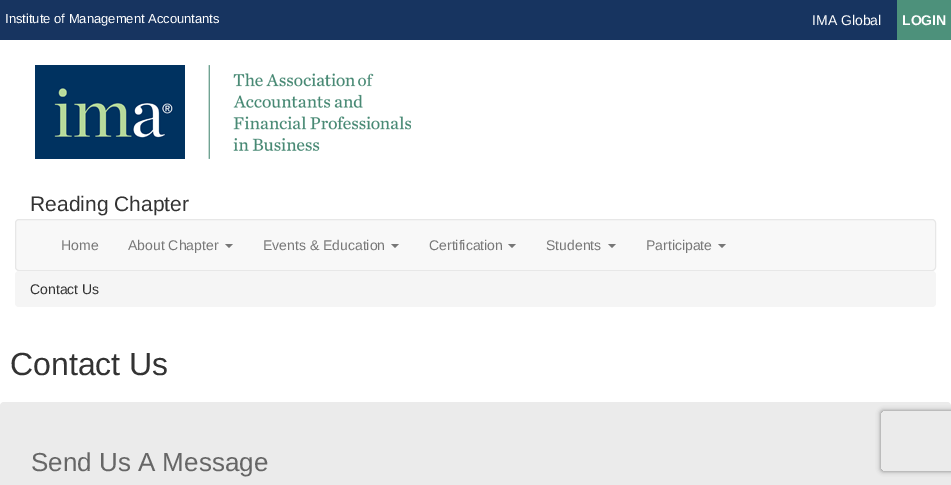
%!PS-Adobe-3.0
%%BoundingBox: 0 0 951 485
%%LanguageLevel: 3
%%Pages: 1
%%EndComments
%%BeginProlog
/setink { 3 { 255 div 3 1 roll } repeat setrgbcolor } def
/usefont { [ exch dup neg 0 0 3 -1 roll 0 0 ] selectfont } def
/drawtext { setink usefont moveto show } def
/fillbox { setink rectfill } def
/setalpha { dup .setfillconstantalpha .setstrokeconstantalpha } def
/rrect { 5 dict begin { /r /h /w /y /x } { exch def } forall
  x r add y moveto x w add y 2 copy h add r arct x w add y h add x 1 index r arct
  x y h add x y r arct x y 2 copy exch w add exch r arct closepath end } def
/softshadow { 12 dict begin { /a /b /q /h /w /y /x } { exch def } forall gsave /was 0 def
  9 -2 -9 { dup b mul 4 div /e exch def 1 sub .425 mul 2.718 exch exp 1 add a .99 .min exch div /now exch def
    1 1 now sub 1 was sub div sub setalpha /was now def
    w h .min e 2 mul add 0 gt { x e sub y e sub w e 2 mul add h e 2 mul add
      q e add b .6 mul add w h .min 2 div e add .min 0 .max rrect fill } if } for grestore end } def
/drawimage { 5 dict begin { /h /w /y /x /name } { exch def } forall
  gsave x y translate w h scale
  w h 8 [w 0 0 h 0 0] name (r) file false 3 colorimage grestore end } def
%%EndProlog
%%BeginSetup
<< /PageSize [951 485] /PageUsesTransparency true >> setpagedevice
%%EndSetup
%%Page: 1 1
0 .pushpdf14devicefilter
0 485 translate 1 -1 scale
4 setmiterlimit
0 0 951 485 255 255 255 fillbox
0 0 897 40 23 52 96 fillbox
(Institute of Management Accountants) 5 23 /LiberationSans-Regular 13 255 255 255 drawtext
(IMA Global) 812 25 /LiberationSans-Regular 14 255 255 255 drawtext
897 0 54 40 77 145 123 fillbox
(LOGIN) 902 25 /LiberationSans-Bold 14 255 255 255 drawtext
(assets/img1.rgb) 35 65 376 94 drawimage
(Reading Chapter) 30 211 /LiberationSans-Regular 21 51 51 51 drawtext
248 248 248 setink
15.5 219.5 920 51 3.5 rrect gsave fill grestore
231 231 231 setink
stroke
(Home) 61 250 /LiberationSans-Regular 14 119 119 119 drawtext
(About Chapter) 128 250 /LiberationSans-Regular 14 119 119 119 drawtext
225 244 moveto 233 244 lineto 229 248 lineto closepath fill
(Events & Education) 263 250 /LiberationSans-Regular 14 119 119 119 drawtext
391 244 moveto 399 244 lineto 395 248 lineto closepath fill
(Certification) 429 250 /LiberationSans-Regular 14 119 119 119 drawtext
508 244 moveto 516 244 lineto 512 248 lineto closepath fill
(Students) 546 250 /LiberationSans-Regular 14 119 119 119 drawtext
608 244 moveto 616 244 lineto 612 248 lineto closepath fill
(Participate) 646 250 /LiberationSans-Regular 14 119 119 119 drawtext
718 244 moveto 726 244 lineto 722 248 lineto closepath fill
245 245 245 setink
15 271 921 36 4 rrect fill
(Contact Us) 30 294 /LiberationSans-Regular 14 51 51 51 drawtext
(Contact Us) 10 375 /LiberationSans-Regular 32 51 51 51 drawtext
235 235 235 setink
0 402 951 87 4 rrect fill
(Send Us A Message) 31 471 /LiberationSans-Regular 26 102 102 102 drawtext
gsave
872 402 moveto 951 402 lineto 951 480 lineto 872 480 lineto closepath 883 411 moveto 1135 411 lineto 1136 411 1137 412 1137 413 curveto 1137 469 lineto 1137 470 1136 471 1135 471 curveto 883 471 lineto 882 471 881 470 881 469 curveto 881 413 lineto 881 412 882 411 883 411 curveto closepath eoclip newpath
128 128 128 setink
881 411 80 60 2 2.5 1 softshadow
grestore
.poppdf14devicefilter showpage
%%EOF
